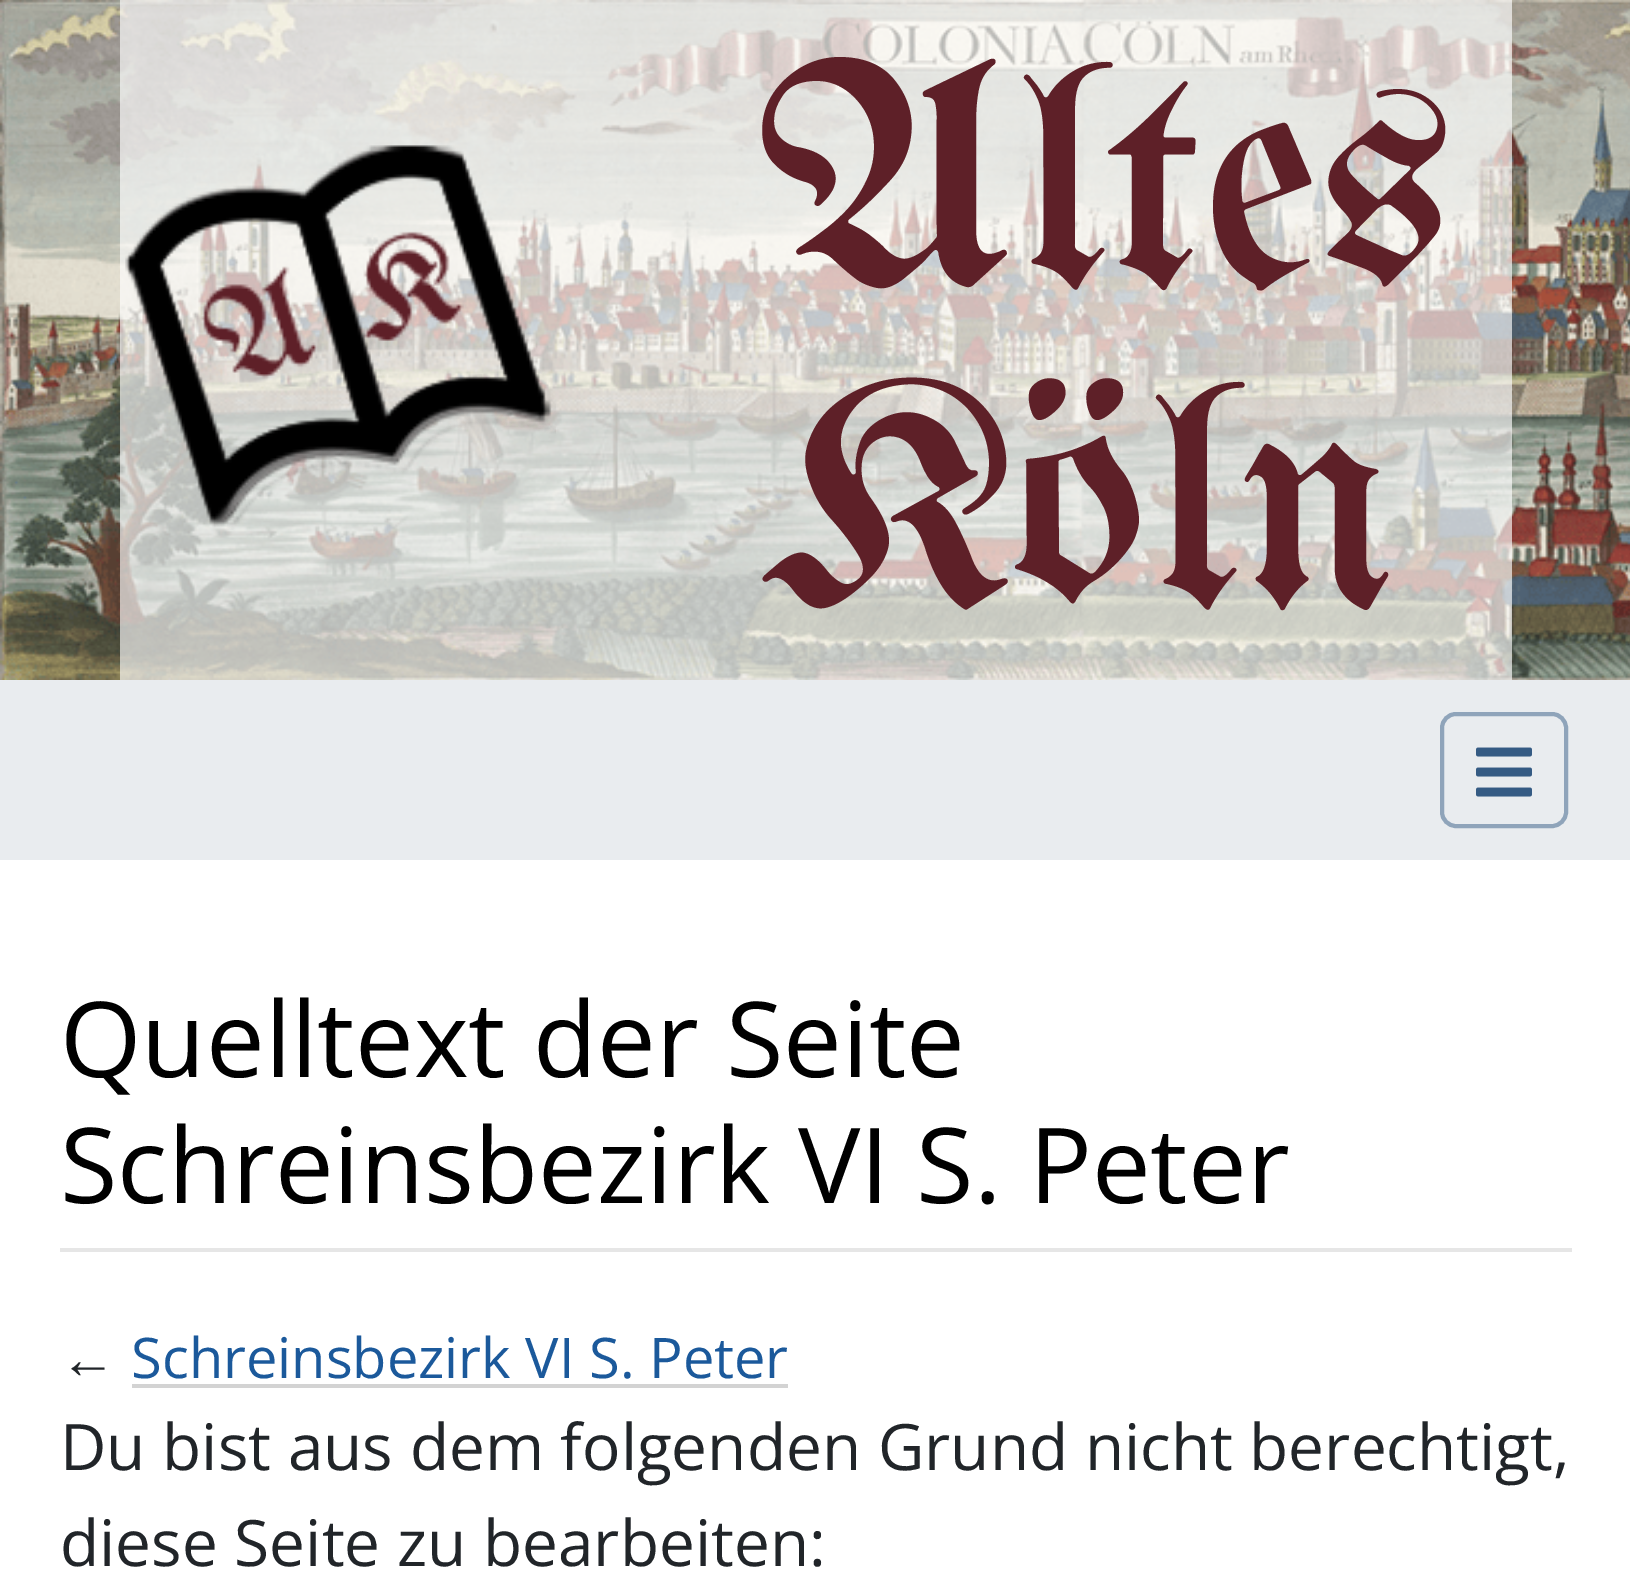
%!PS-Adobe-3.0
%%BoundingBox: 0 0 1630 1592
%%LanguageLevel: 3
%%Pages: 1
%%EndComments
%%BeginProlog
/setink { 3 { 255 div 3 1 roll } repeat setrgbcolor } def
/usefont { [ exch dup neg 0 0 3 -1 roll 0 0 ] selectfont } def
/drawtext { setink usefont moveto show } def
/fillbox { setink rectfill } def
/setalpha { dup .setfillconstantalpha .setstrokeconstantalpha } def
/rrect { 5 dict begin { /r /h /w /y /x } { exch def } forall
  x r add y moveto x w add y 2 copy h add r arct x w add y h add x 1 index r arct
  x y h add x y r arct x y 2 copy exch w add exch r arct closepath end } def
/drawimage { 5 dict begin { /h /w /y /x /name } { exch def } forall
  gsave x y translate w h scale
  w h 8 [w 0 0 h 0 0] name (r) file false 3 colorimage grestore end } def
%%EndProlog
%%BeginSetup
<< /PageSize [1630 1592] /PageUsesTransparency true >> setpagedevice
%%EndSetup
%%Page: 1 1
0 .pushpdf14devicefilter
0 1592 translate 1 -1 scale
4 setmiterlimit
0 0 1630 1592 255 255 255 fillbox
(assets/img1.rgb) 0 0 1630 680 drawimage
0.65 setalpha
120 0 1392 680 255 255 255 fillbox
1 setalpha
(assets/img2.rgb) 125 145 431 385 drawimage
(Altes) 755 284 /UnifrakturMaguntia-Regular 320 94 32 40 drawtext
(Köln) 755 604 /UnifrakturMaguntia-Regular 320 94 32 40 drawtext
0 680 1630 180 233 236 239 fillbox
143 164 186 setink
4 setlinewidth
1442 714 124 112 14 rrect stroke
(assets/img3.rgb) 1476 747 56 50 drawimage
60 1248 1512 4 230 230 230 fillbox
(Quelltext der Seite) 60 1077 /OpenSans-Regular 104.75 0 0 0 drawtext
(Schreinsbezirk VI S. Peter) 60 1203 /OpenSans-Regular 104.75 0 0 0 drawtext
(←) 60 1378 /LiberationSans-Regular 56 33 37 41 drawtext
(Schreinsbezirk VI S. Peter) 131 1378 /OpenSans-Regular 56 27 89 155 drawtext
132 1384 656 4 211 211 211 fillbox
(Du bist aus dem folgenden Grund nicht berechtigt,) 60 1470 /OpenSans-Regular 64 33 37 41 drawtext
(diese Seite zu bearbeiten:) 60 1566 /OpenSans-Regular 64 33 37 41 drawtext
.poppdf14devicefilter showpage
%%EOF
